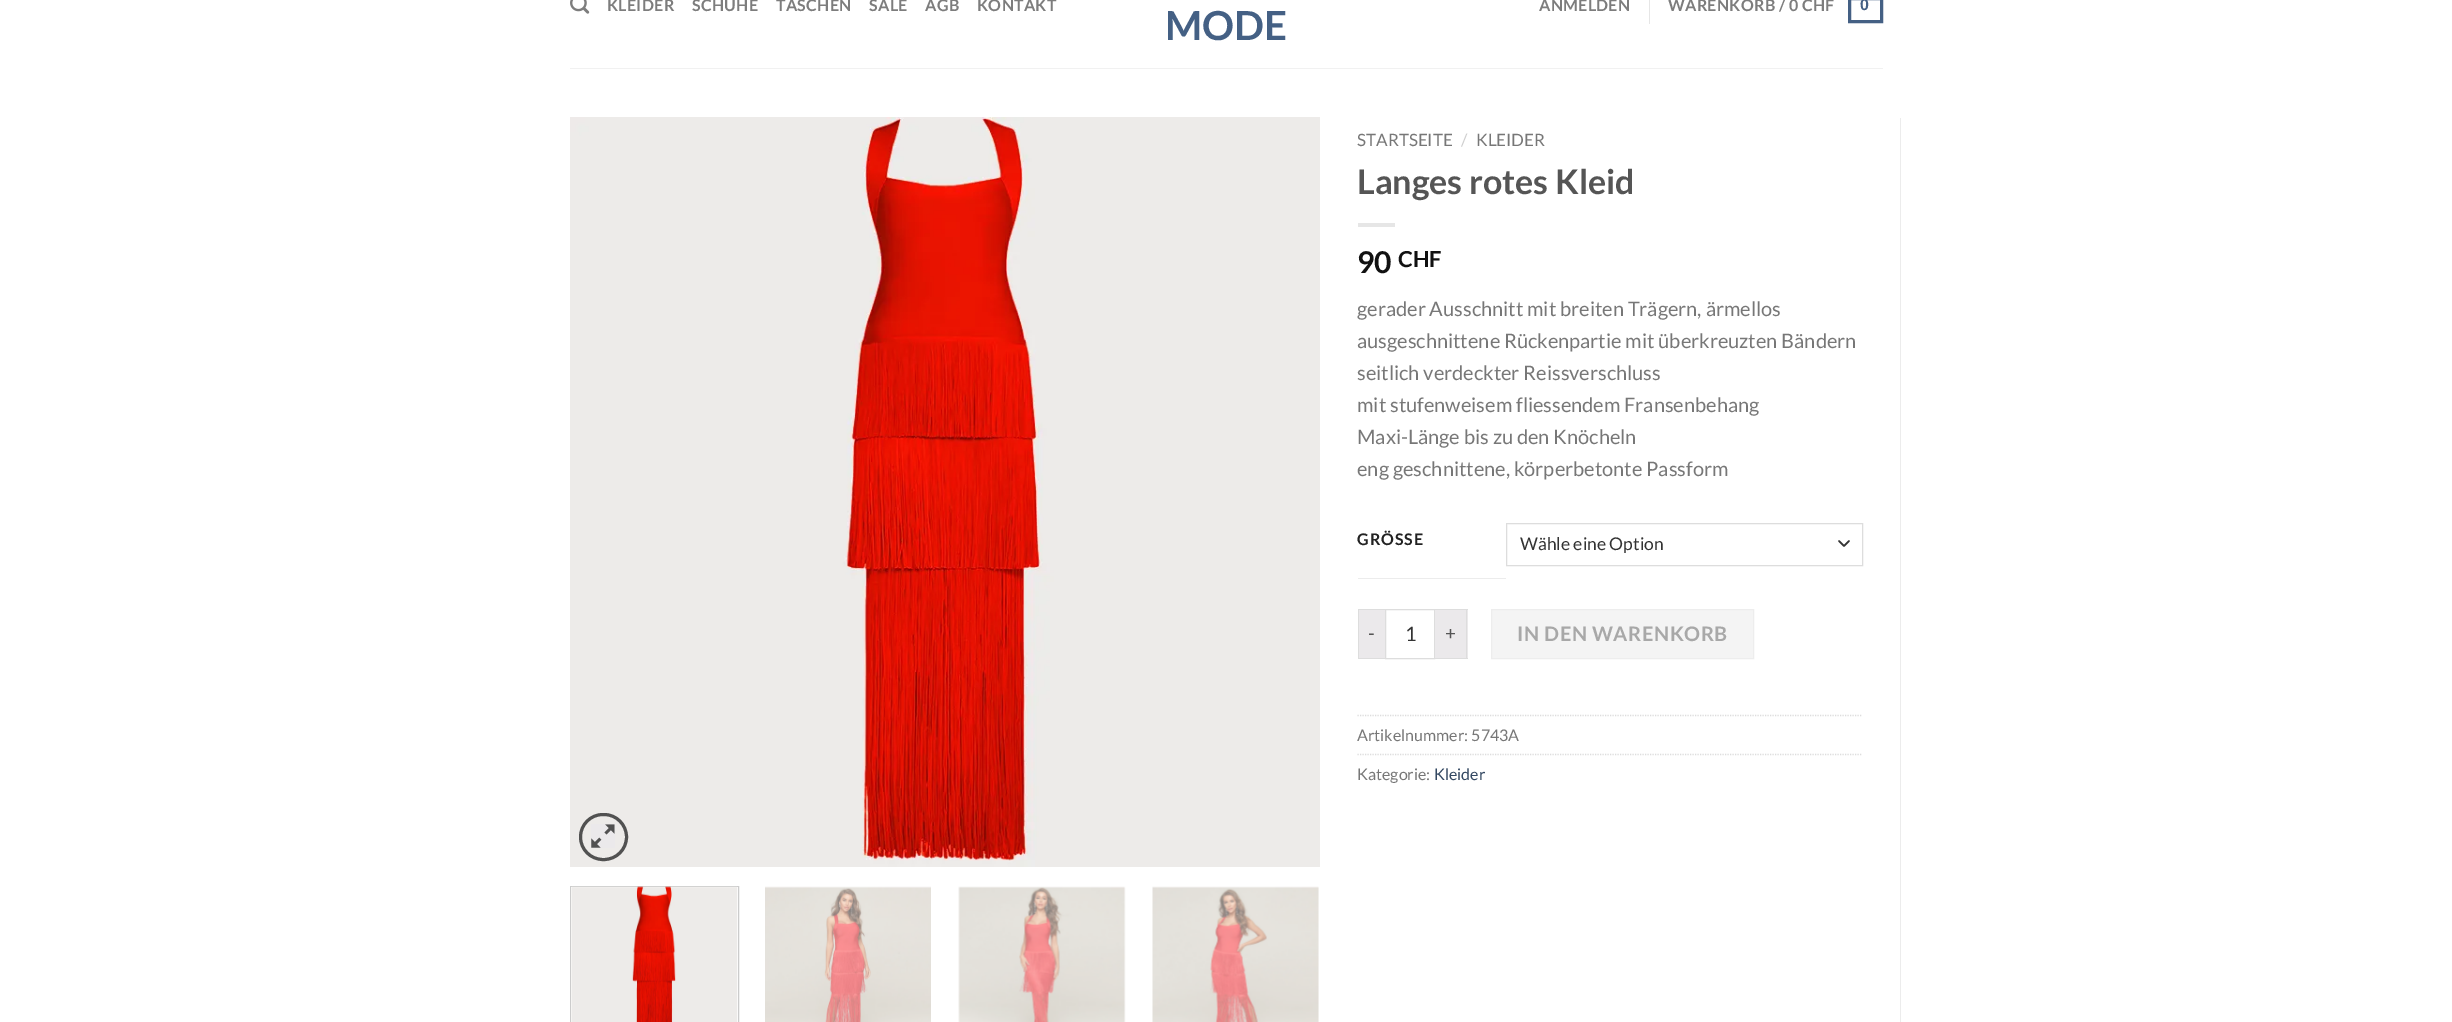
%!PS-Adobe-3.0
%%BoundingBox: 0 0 2452 1022
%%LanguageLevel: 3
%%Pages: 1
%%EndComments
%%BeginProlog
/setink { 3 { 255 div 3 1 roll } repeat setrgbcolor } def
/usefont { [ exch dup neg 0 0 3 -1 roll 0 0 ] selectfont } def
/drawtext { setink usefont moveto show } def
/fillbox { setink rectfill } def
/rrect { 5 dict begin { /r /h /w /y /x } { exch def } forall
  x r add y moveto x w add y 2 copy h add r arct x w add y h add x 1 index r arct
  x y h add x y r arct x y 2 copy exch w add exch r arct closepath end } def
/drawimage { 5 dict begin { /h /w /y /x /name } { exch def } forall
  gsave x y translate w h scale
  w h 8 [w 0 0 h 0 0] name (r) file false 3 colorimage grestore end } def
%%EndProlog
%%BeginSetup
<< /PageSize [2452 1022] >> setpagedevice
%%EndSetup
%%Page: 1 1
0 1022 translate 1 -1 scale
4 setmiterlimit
0 0 2452 1022 255 255 255 fillbox
(assets/img1.rgb) 570 0 20 14 drawimage
/Lato-Bold 16 usefont
125 125 125 setink
607 11 moveto 0.3 0 (KLEIDER) ashow
692 11 moveto 0.3 0 (SCHUHE) ashow
776 11 moveto 0.3 0 (TASCHEN) ashow
869 11 moveto 0.3 0 (SALE) ashow
925 11 moveto 0.3 0 (AGB) ashow
977 11 moveto 0.3 0 (KONTAKT) ashow
1539 11 moveto 0.3 0 (ANMELDEN) ashow
1649 0 1 24 230 230 230 fillbox
125 125 125 setink
1668 11 moveto 0.3 0 (WARENKORB / 0 CHF) ashow
68 96 132 setink
3 setlinewidth
1849.5 -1.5 32 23 rectstroke
/LiberationSans-Bold 16 usefont
1860 10 moveto 0.3 0 (0) ashow
(MODE) 1165 40 /Lato-Bold 40 68 96 132 drawtext
570 68 1313 1 241 241 241 fillbox
(assets/img2.rgb) 570 117 750 750 drawimage
81 81 81 setink
580.5 814.5 46 45 22.5 rrect stroke
(assets/img3.rgb) 591 824 24 24 drawimage
204 204 204 setink
1 setlinewidth
570.5 886.5 168 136 rectstroke
(assets/img4.rgb) 571 886 167 136 drawimage
(assets/img5.rgb) 765 886 166 136 drawimage
(assets/img6.rgb) 958 886 168 136 drawimage
(assets/img7.rgb) 1152 886 167 136 drawimage
1900 118 1 904 236 236 236 fillbox
(STARTSEITE) 1357 146 /Lato-Regular 17 119 119 119 drawtext
(/) 1461 146 /Lato-Regular 17 207 207 207 drawtext
(KLEIDER) 1476 146 /Lato-Regular 17 119 119 119 drawtext
(Langes rotes Kleid) 1357 194 /Lato-Bold 34 85 85 85 drawtext
1358 223 37 4 230 230 230 fillbox
(90) 1357 273 /Lato-Bold 30 17 17 17 drawtext
(CHF) 1398 267 /Lato-Bold 22 17 17 17 drawtext
(gerader Ausschnitt mit breiten Trägern, ärmellos) 1357 316 /Lato-Regular 20 119 119 119 drawtext
(ausgeschnittene Rückenpartie mit überkreuzten Bändern) 1357 348 /Lato-Regular 20 119 119 119 drawtext
(seitlich verdeckter Reissverschluss) 1357 380 /Lato-Regular 20 119 119 119 drawtext
(mit stufenweisem fliessendem Fransenbehang) 1357 412 /Lato-Regular 20 119 119 119 drawtext
(Maxi-Länge bis zu den Knöcheln) 1357 444 /Lato-Regular 20 119 119 119 drawtext
(eng geschnittene, körperbetonte Passform) 1357 476 /Lato-Regular 20 119 119 119 drawtext
1358 578 148 1 236 236 236 fillbox
/Lato-Bold 16 usefont
34 34 34 setink
1357 545 moveto 1 0 (GRÖSSE) ashow
51 51 51 setink
1.7 setlinewidth
1 setlinecap
1 setlinejoin
1839 541 moveto 1844 546 lineto 1849 541 lineto stroke
221 221 221 setink
1 setlinewidth
0 setlinecap
0 setlinejoin
1506.5 523.5 356 42 rectstroke
(Wähle eine Option) 1520 550 /Lato-Regular 17.5 51 51 51 drawtext
1359 610 26 48 235 233 235 fillbox
1358 609 27 1 221 221 221 fillbox
1358 658 27 1 221 221 221 fillbox
1358 609 1 50 221 221 221 fillbox
/Lato-Regular 19 usefont
85 85 85 setink
1368 640 moveto 1 0 (-) ashow
221 221 221 setink
1385.5 609.5 49 49 rectstroke
(1) 1405 641 /Lato-Regular 20 51 51 51 drawtext
1435 610 33 48 235 233 235 fillbox
1435 609 33 1 221 221 221 fillbox
1466 609 1 50 221 221 221 fillbox
1435 658 33 1 221 221 221 fillbox
/Lato-Regular 19 usefont
85 85 85 setink
1445 640 moveto 1 0 (+) ashow
244 244 244 setink
1491.5 609.5 moveto 1753.5 609.5 lineto 1753.5 658.5 lineto 1491.5 658.5 lineto closepath gsave fill grestore
237 237 237 setink
stroke
/Lato-Bold 20 usefont
168 168 168 setink
1517 641 moveto 0.6 0 (IN DEN WARENKORB) ashow
221 221 221 setink
1.2 setlinewidth
[1.25 1.25] 0 setdash
1357.5 715.5 moveto 1862.5 715.5 lineto stroke
(Artikelnummer: 5743A) 1357 741 /Lato-Regular 16 119 119 119 drawtext
221 221 221 setink
1357.5 754.5 moveto 1862.5 754.5 lineto stroke
(Kategorie:) 1357 780 /Lato-Regular 16 119 119 119 drawtext
(Kleider) 1434 780 /Lato-Regular 16 51 72 98 drawtext
showpage
%%EOF
